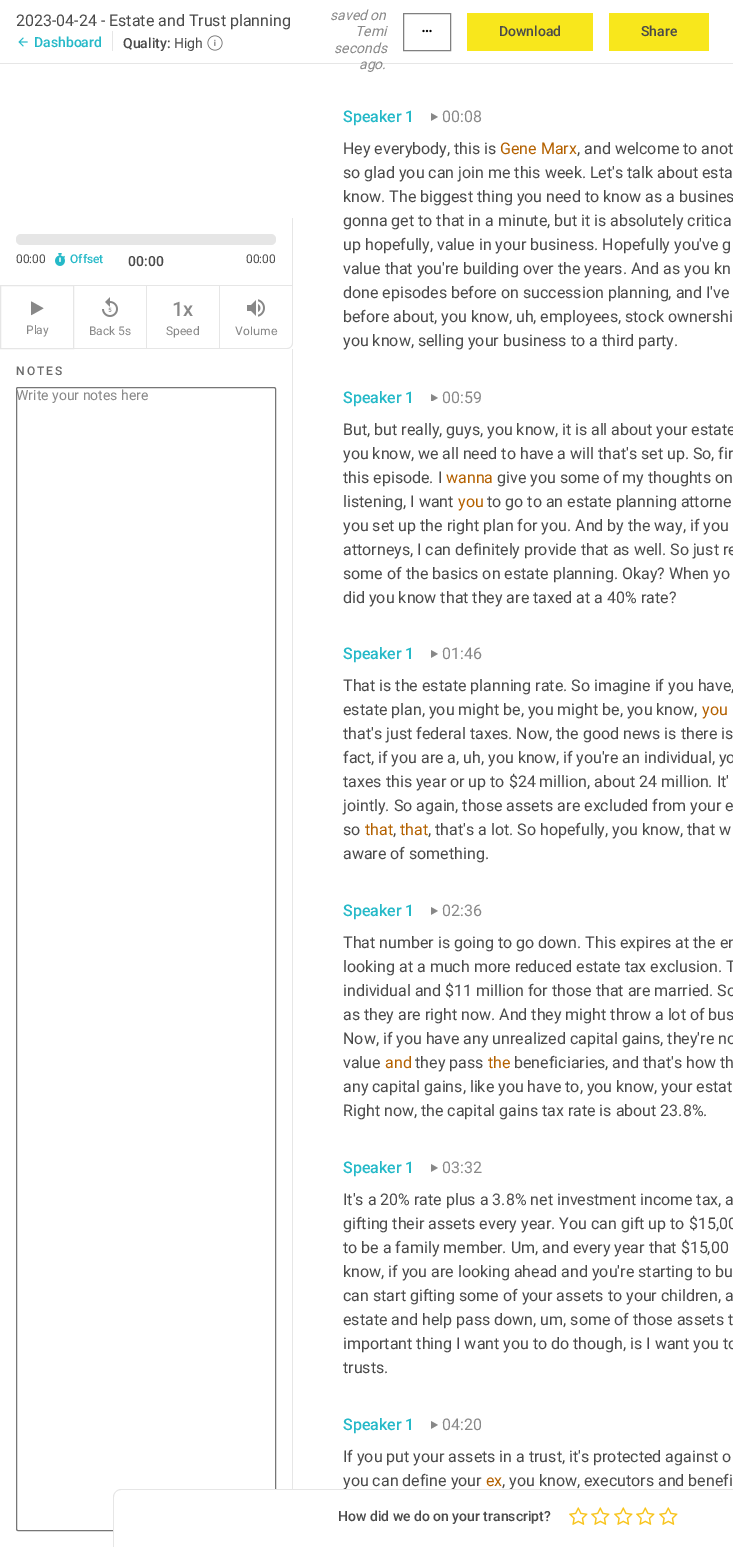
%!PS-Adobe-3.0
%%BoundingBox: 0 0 733 1547
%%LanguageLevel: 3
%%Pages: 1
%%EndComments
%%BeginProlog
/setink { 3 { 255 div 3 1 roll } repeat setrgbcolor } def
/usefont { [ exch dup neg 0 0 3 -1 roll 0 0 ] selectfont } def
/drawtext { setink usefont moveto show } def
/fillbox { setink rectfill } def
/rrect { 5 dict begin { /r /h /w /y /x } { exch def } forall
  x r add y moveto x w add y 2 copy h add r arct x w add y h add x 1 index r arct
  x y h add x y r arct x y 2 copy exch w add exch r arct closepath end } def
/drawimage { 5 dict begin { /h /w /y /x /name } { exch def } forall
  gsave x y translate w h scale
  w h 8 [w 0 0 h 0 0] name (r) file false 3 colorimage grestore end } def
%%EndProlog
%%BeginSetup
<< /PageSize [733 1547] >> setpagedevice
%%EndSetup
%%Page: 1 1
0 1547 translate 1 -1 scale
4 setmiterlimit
0 0 733 1547 255 255 255 fillbox
0 63 733 1 230 230 230 fillbox
(2023-04-24 - Estate and Trust planning) 16 26 /Roboto-Regular 16 74 74 74 drawtext
(assets/img1.rgb) 18 37 10 10 drawimage
(Dashboard) 34 47 /Roboto-Medium 14 37 185 200 drawtext
112 31 1 20 230 230 230 fillbox
(Quality:) 123 48 /Roboto-Medium 14 74 74 74 drawtext
(High) 174 48 /Roboto-Regular 14 74 74 74 drawtext
(assets/img2.rgb) 207 35 16 16 drawimage
(saved on) 330 20 /Roboto-Italic 14 136 136 136 drawtext
(Temi) 355 36 /Roboto-Italic 14 136 136 136 drawtext
(seconds) 334 53 /Roboto-Italic 14 136 136 136 drawtext
(ago.) 359 69 /Roboto-Italic 14 136 136 136 drawtext
128 128 128 setink
403.5 13.5 47 37 rectstroke
(assets/img3.rgb) 422 29 10 4 drawimage
467 13 126 38 248 231 28 fillbox
(Download) 499 36 /Roboto-Medium 14 74 74 74 drawtext
609 13 100 38 248 231 28 fillbox
(Share) 641 36 /Roboto-Medium 14 74 74 74 drawtext
292 218 1 67 230 230 230 fillbox
16 234 260 11 5 rrect fill
(00:00) 16 263 /Roboto-Regular 12 74 74 74 drawtext
(assets/img4.rgb) 55 253 10 13 drawimage
(Offset) 70 263 /Roboto-Medium 12 37 185 200 drawtext
(00:00) 128 266 /Roboto-Medium 14 74 74 74 drawtext
(00:00) 246 263 /Roboto-Regular 12 74 74 74 drawtext
230 230 230 setink
0.5 285.5 73 63 rectstroke
(assets/img5.rgb) 31 301 13 15 drawimage
(Play) 26 334 /Roboto-Regular 12 136 136 136 drawtext
74 285 146 1 230 230 230 fillbox
146 285 1 64 230 230 230 fillbox
74 348 73 1 230 230 230 fillbox
(assets/img6.rgb) 102 297 16 20 drawimage
(Back 5s) 89 335 /Roboto-Regular 12 136 136 136 drawtext
219 285 1 64 230 230 230 fillbox
147 348 73 1 230 230 230 fillbox
(1x) 172 316 /Roboto-Medium 20 136 136 136 drawtext
(Speed) 166 335 /Roboto-Regular 12 136 136 136 drawtext
230 230 230 setink
220 285 moveto 293 285 lineto 293 343 lineto 293 346 290 349 287 349 curveto 220 349 lineto closepath 220 286 moveto 292 286 lineto 292 343 lineto 292 346 290 348 287 348 curveto 220 348 lineto closepath eofill
(assets/img7.rgb) 247 299 18 18 drawimage
(Volume) 235 335 /Rubik-Regular 12 136 136 136 drawtext
292 349 1 1140 230 230 230 fillbox
/Roboto-Medium 12 usefont
106 106 106 setink
16 375 moveto 2 0 (NOTES) ashow
118 118 118 setink
16.5 387.5 259 1143 1.5 rrect stroke
(Write your notes here) 16 400 /Roboto-Regular 14 136 136 136 drawtext
(Speaker 1) 343 122 /Roboto-Medium 16 37 185 200 drawtext
(assets/img8.rgb) 431 113 7 8 drawimage
(00:08) 442 122 /Roboto-Regular 16 136 136 136 drawtext
(Hey everybody, this is) 343 154 /Roboto-Regular 16 74 74 74 drawtext
(Gene Marx) 500 154 /Roboto-Regular 16 180 97 0 drawtext
(, and welcome to anot) 577 154 /Roboto-Regular 16 74 74 74 drawtext
(so glad you can join me this week. Let's talk about esta) 343 178 /Roboto-Regular 16 74 74 74 drawtext
(know. The biggest thing you need to know as a busines) 343 202 /Roboto-Regular 16 74 74 74 drawtext
(gonna get to that in a minute, but it is absolutely critica) 343 226 /Roboto-Regular 16 74 74 74 drawtext
(up hopefully, value in your business. Hopefully you've g) 343 250 /Roboto-Regular 16 74 74 74 drawtext
(value that you're building over the years. And as you kn) 343 274 /Roboto-Regular 16 74 74 74 drawtext
(done episodes before on succession planning, and I've) 343 298 /Roboto-Regular 16 74 74 74 drawtext
(before about, you know, uh, employees, stock ownershi) 343 322 /Roboto-Regular 16 74 74 74 drawtext
(you know, selling your business to a third party.) 343 346 /Roboto-Regular 16 74 74 74 drawtext
(Speaker 1) 343 403 /Roboto-Medium 16 37 185 200 drawtext
(assets/img9.rgb) 431 394 7 7 drawimage
(00:59) 442 403 /Roboto-Regular 16 136 136 136 drawtext
(But, but really, guys, you know, it is all about your estate) 343 435 /Roboto-Regular 16 74 74 74 drawtext
(you know, we all need to have a will that's set up. So, fir) 343 459 /Roboto-Regular 16 74 74 74 drawtext
(this episode. I) 343 483 /Roboto-Regular 16 74 74 74 drawtext
(wanna) 446 483 /Roboto-Regular 16 180 97 0 drawtext
(give you some of my thoughts on) 497 483 /Roboto-Regular 16 74 74 74 drawtext
(listening, I want) 343 507 /Roboto-Regular 16 74 74 74 drawtext
(you) 458 507 /Roboto-Regular 16 180 97 0 drawtext
(to go to an estate planning attorne) 487 507 /Roboto-Regular 16 74 74 74 drawtext
(you set up the right plan for you. And by the way, if you) 343 531 /Roboto-Regular 16 74 74 74 drawtext
(attorneys, I can definitely provide that as well. So just re) 343 555 /Roboto-Regular 16 74 74 74 drawtext
(some of the basics on estate planning. Okay? When yo) 343 579 /Roboto-Regular 16 74 74 74 drawtext
(did you know that they are taxed at a 40% rate?) 343 603 /Roboto-Regular 16 74 74 74 drawtext
(Speaker 1) 343 659 /Roboto-Medium 16 37 185 200 drawtext
(assets/img8.rgb) 431 650 7 8 drawimage
(01:46) 442 659 /Roboto-Regular 16 136 136 136 drawtext
(That is the estate planning rate. So imagine if you have,) 343 691 /Roboto-Regular 16 74 74 74 drawtext
(estate plan, you might be, you might be, you know,) 343 715 /Roboto-Regular 16 74 74 74 drawtext
(you) 702 715 /Roboto-Regular 16 180 97 0 drawtext
(that's just federal taxes. Now, the good news is there is) 343 739 /Roboto-Regular 16 74 74 74 drawtext
(fact, if you are a, uh, you know, if you're an individual, yo) 343 763 /Roboto-Regular 16 74 74 74 drawtext
(taxes this year or up to $24 million, about 24 million. It') 343 787 /Roboto-Regular 16 74 74 74 drawtext
(jointly. So again, those assets are excluded from your e) 343 811 /Roboto-Regular 16 74 74 74 drawtext
(so) 343 835 /Roboto-Regular 16 74 74 74 drawtext
(that) 365 835 /Roboto-Regular 16 180 97 0 drawtext
(,) 393 835 /Roboto-Regular 16 74 74 74 drawtext
(that) 400 835 /Roboto-Regular 16 180 97 0 drawtext
(, that's a lot. So hopefully, you know, that w) 428 835 /Roboto-Regular 16 74 74 74 drawtext
(aware of something.) 343 859 /Roboto-Regular 16 74 74 74 drawtext
(Speaker 1) 343 916 /Roboto-Medium 16 37 185 200 drawtext
(assets/img8.rgb) 431 907 7 8 drawimage
(02:36) 442 916 /Roboto-Regular 16 136 136 136 drawtext
(That number is going to go down. This expires at the en) 343 948 /Roboto-Regular 16 74 74 74 drawtext
(looking at a much more reduced estate tax exclusion. T) 343 972 /Roboto-Regular 16 74 74 74 drawtext
(individual and $11 million for those that are married. So) 343 996 /Roboto-Regular 16 74 74 74 drawtext
(as they are right now. And they might throw a lot of bus) 343 1020 /Roboto-Regular 16 74 74 74 drawtext
(Now, if you have any unrealized capital gains, they're no) 343 1044 /Roboto-Regular 16 74 74 74 drawtext
(value) 343 1068 /Roboto-Regular 16 74 74 74 drawtext
(and) 385 1068 /Roboto-Regular 16 180 97 0 drawtext
(they pass) 415 1068 /Roboto-Regular 16 74 74 74 drawtext
(the) 488 1068 /Roboto-Regular 16 180 97 0 drawtext
(beneficiaries, and that's how th) 514 1068 /Roboto-Regular 16 74 74 74 drawtext
(any capital gains, like you have to, you know, your estat) 343 1092 /Roboto-Regular 16 74 74 74 drawtext
(Right now, the capital gains tax rate is about 23.8%.) 343 1116 /Roboto-Regular 16 74 74 74 drawtext
(Speaker 1) 343 1173 /Roboto-Medium 16 37 185 200 drawtext
(assets/img8.rgb) 431 1164 7 8 drawimage
(03:32) 442 1173 /Roboto-Regular 16 136 136 136 drawtext
(It's a 20% rate plus a 3.8% net investment income tax, a) 343 1205 /Roboto-Regular 16 74 74 74 drawtext
(gifting their assets every year. You can gift up to $15,00) 343 1229 /Roboto-Regular 16 74 74 74 drawtext
(to be a family member. Um, and every year that $15,00) 343 1253 /Roboto-Regular 16 74 74 74 drawtext
(know, if you are looking ahead and you're starting to bu) 343 1277 /Roboto-Regular 16 74 74 74 drawtext
(can start gifting some of your assets to your children, a) 343 1301 /Roboto-Regular 16 74 74 74 drawtext
(estate and help pass down, um, some of those assets t) 343 1325 /Roboto-Regular 16 74 74 74 drawtext
(important thing I want you to do though, is I want you to) 343 1349 /Roboto-Regular 16 74 74 74 drawtext
(trusts.) 343 1373 /Roboto-Regular 16 74 74 74 drawtext
(Speaker 1) 343 1430 /Roboto-Medium 16 37 185 200 drawtext
(assets/img8.rgb) 431 1421 7 8 drawimage
(04:20) 442 1430 /Roboto-Regular 16 136 136 136 drawtext
(If you put your assets in a trust, it's protected against o) 343 1462 /Roboto-Regular 16 74 74 74 drawtext
(you can define your) 343 1486 /Roboto-Regular 16 74 74 74 drawtext
(ex) 486 1486 /Roboto-Regular 16 180 97 0 drawtext
(, you know, executors and benefi) 502 1486 /Roboto-Regular 16 74 74 74 drawtext
255 255 255 setink
121 1490 moveto 733 1490 lineto 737 1490 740 1493 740 1497 curveto 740 1547 lineto 114 1547 lineto 114 1497 lineto 114 1493 117 1490 121 1490 curveto closepath fill
230 230 230 setink
121 1489 moveto 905 1489 lineto 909 1489 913 1493 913 1497 curveto 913 1547 lineto 113 1547 lineto 113 1497 lineto 113 1493 117 1489 121 1489 curveto closepath 121 1490 moveto 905 1490 lineto 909 1490 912 1493 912 1497 curveto 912 1547 lineto 114 1547 lineto 114 1497 lineto 114 1493 117 1490 121 1490 curveto closepath eofill
(How did we do on your transcript?) 338 1521 /Roboto-Medium 14 74 74 74 drawtext
(assets/img10.rgb) 569 1507 19 18 drawimage
(assets/img10.rgb) 591 1507 19 18 drawimage
(assets/img10.rgb) 614 1507 19 18 drawimage
(assets/img10.rgb) 636 1507 19 18 drawimage
(assets/img10.rgb) 659 1507 19 18 drawimage
showpage
%%EOF
